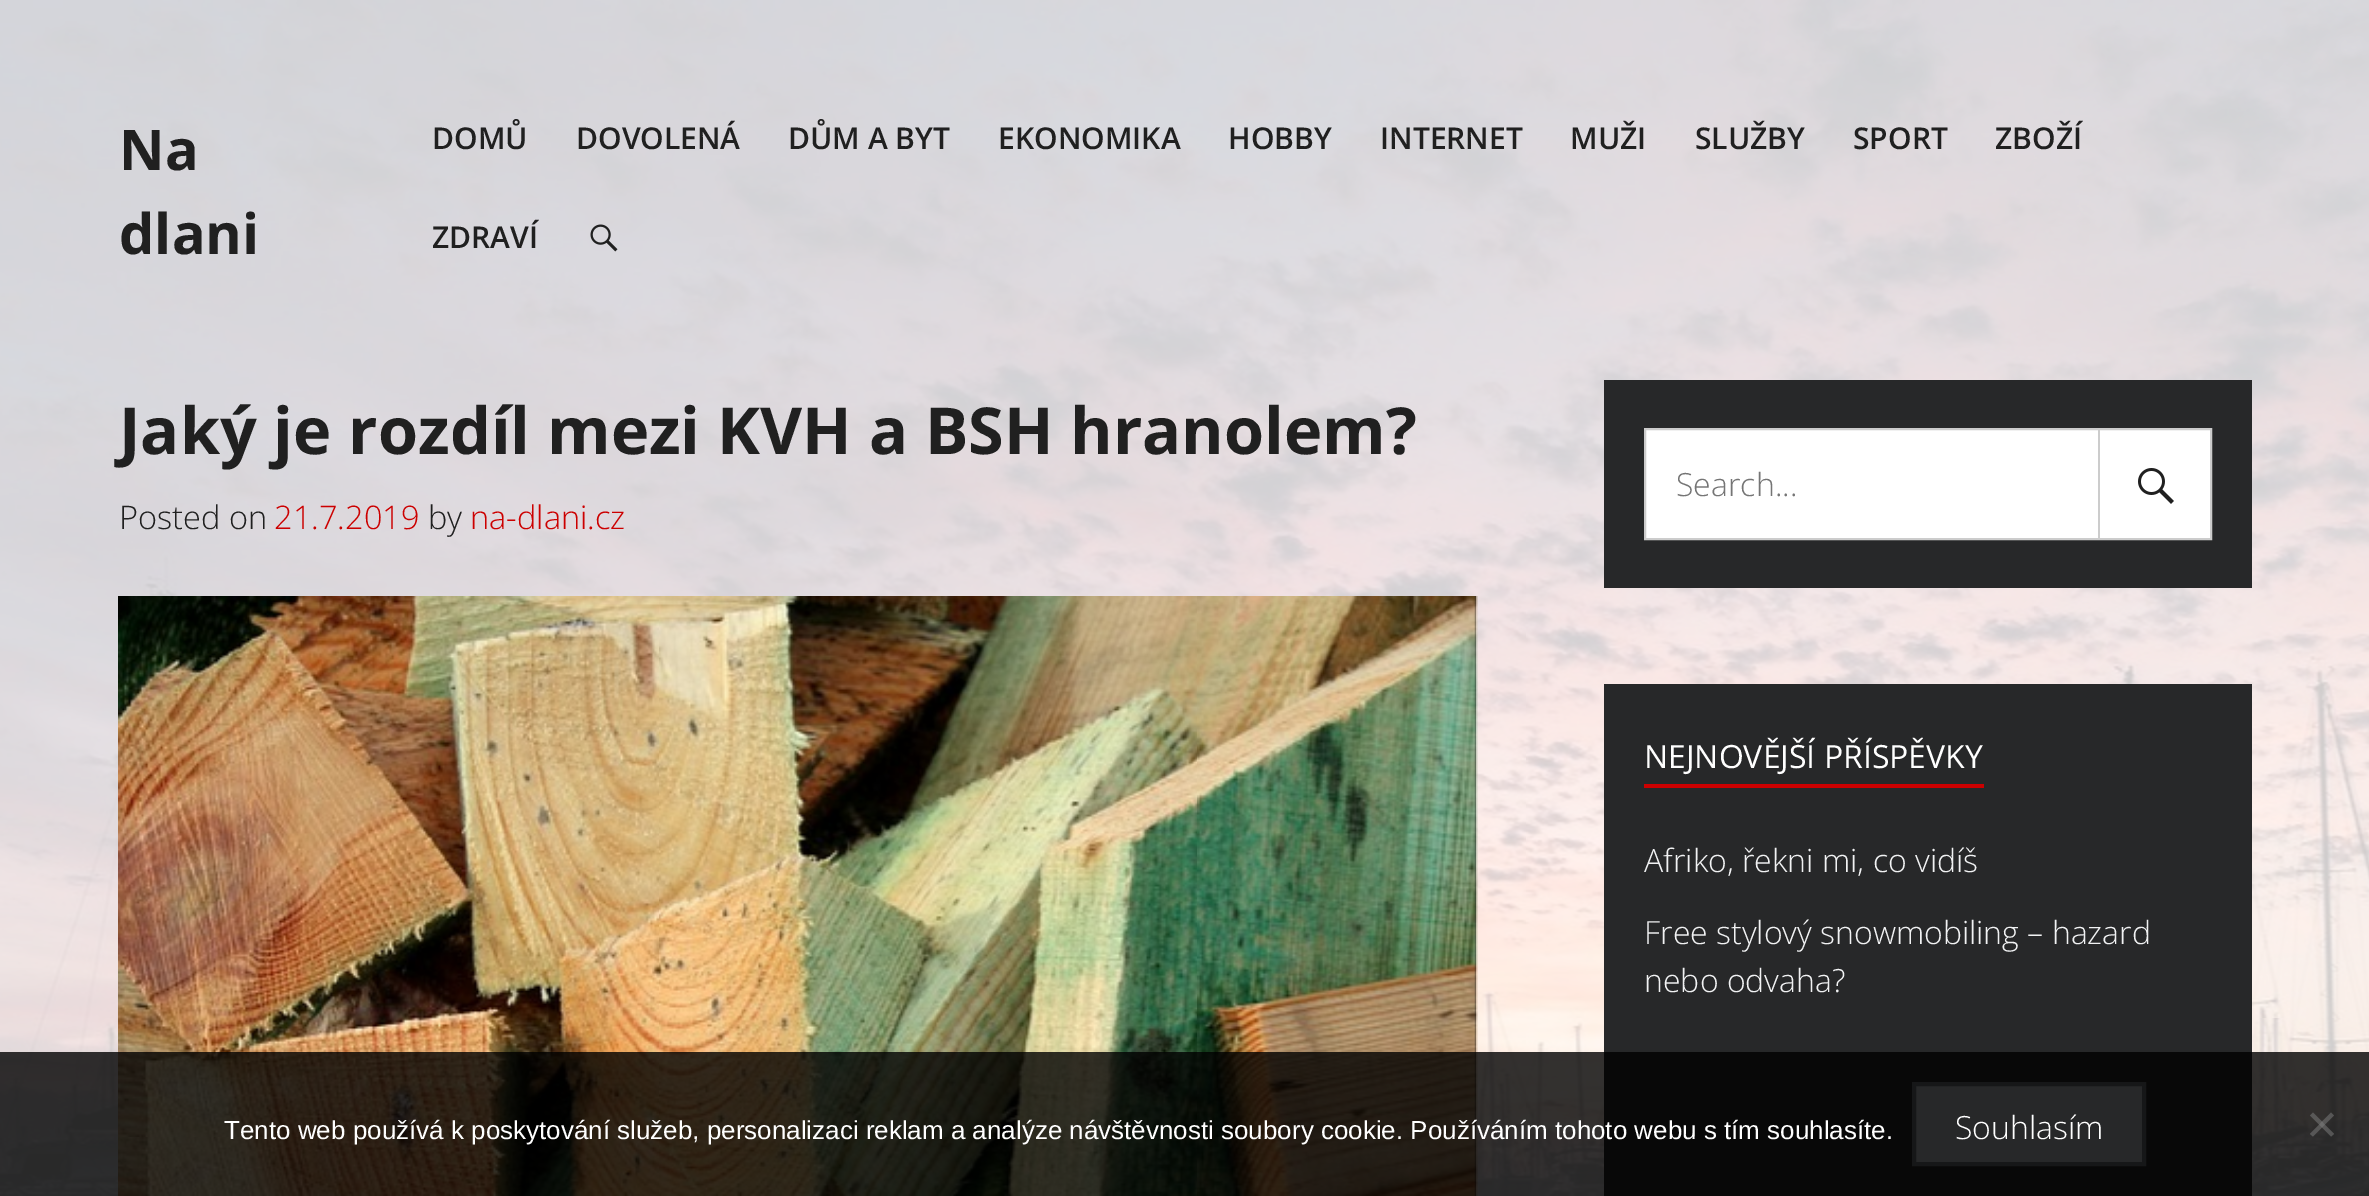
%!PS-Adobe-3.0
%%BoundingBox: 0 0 2369 1196
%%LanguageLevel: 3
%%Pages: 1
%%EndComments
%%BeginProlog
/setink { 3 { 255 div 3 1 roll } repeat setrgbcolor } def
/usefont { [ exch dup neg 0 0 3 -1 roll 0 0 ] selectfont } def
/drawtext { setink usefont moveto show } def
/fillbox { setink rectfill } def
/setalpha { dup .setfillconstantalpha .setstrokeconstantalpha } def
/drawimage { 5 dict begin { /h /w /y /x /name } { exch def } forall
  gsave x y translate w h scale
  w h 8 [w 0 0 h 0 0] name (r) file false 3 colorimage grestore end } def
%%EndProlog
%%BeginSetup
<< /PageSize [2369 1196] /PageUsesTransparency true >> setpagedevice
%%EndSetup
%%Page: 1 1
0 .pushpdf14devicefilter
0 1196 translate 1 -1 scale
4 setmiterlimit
0 0 2369 1196 255 255 255 fillbox
(assets/img1.rgb) 0 0 2369 1196 drawimage
(Na) 119 170 /OpenSans-Bold 56 32 32 32 drawtext
(dlani) 119 254 /OpenSans-Bold 56 32 32 32 drawtext
(DOMŮ) 432 149 /OpenSans-SemiBold 30 32 32 32 drawtext
(DOVOLENÁ) 576 149 /OpenSans-SemiBold 30 32 32 32 drawtext
(DŮM A BYT) 788 149 /OpenSans-SemiBold 30 32 32 32 drawtext
(EKONOMIKA) 998 149 /OpenSans-SemiBold 30 32 32 32 drawtext
(HOBBY) 1228 149 /OpenSans-SemiBold 30 32 32 32 drawtext
(INTERNET) 1380 149 /OpenSans-SemiBold 30 32 32 32 drawtext
(MUŽI) 1570 149 /OpenSans-SemiBold 30 32 32 32 drawtext
(SLUŽBY) 1695 149 /OpenSans-SemiBold 30 32 32 32 drawtext
(SPORT) 1853 149 /OpenSans-SemiBold 30 32 32 32 drawtext
(ZBOŽÍ) 1995 149 /OpenSans-SemiBold 30 32 32 32 drawtext
(ZDRAVÍ) 432 248 /OpenSans-SemiBold 30 32 32 32 drawtext
(assets/img2.rgb) 590 224 28 28 drawimage
(Jaký je rozdíl mezi KVH a BSH hranolem?) 119 454 /OpenSans-Bold 64.8 32 32 32 drawtext
(Posted on) 119 529 /OpenSans-Light 32.5 32 32 32 drawtext
(21.7.2019) 274 529 /OpenSans-Light 32.5 204 0 0 drawtext
(by) 428 529 /OpenSans-Light 32.5 32 32 32 drawtext
(na-dlani.cz) 470 529 /OpenSans-Light 32.5 204 0 0 drawtext
1474 596 2 600 39 40 41 fillbox
(assets/img3.rgb) 118 596 1360 600 drawimage
1604 380 648 208 39 40 41 fillbox
255 255 255 setink
1645 429 moveto 2211 429 lineto 2211 539 lineto 1645 539 lineto closepath gsave fill grestore
204 204 204 setink
2 setlinewidth
stroke
(Search...) 1676 496 /OpenSans-Light 32 117 117 117 drawtext
2098 430 2 108 204 204 204 fillbox
(assets/img4.rgb) 2138 468 36 36 drawimage
1604 684 648 512 39 40 41 fillbox
1644 784 340 4 204 0 0 fillbox
(NEJNOVĚJŠÍ PŘÍSPĚVKY) 1644 768 /OpenSans-Regular 32 255 255 255 drawtext
(Afriko, řekni mi, co vidíš) 1644 872 /OpenSans-Light 32 241 242 243 drawtext
(Free stylový snowmobiling – hazard) 1644 944 /OpenSans-Light 32 241 242 243 drawtext
(nebo odvaha?) 1644 992 /OpenSans-Light 32 241 242 243 drawtext
0.8 setalpha
0 1052 2369 144 0 0 0 fillbox
1 setalpha
(Tento web používá k poskytování služeb, personalizaci reklam a analýze návštěvnosti soubory cookie. Používáním tohoto webu s tím souhlasíte.) 224 1139 /LiberationSans-Regular 26 255 255 255 drawtext
39 40 41 setink
1914 1084 moveto 2144 1084 lineto 2144 1164 lineto 1914 1164 lineto closepath gsave fill grestore
22 23 24 setink
4 setlinewidth
stroke
(Souhlasím) 1955 1139 /OpenSans-Light 32 255 255 255 drawtext
0.5 setalpha
128 128 128 setink
2331 1112.5 moveto 2334 1115.5 lineto 2313 1136.5 lineto 2310 1134 lineto closepath fill
2310 1115.5 moveto 2313 1112.5 lineto 2334 1134 lineto 2331 1136.5 lineto closepath fill
.poppdf14devicefilter showpage
%%EOF
